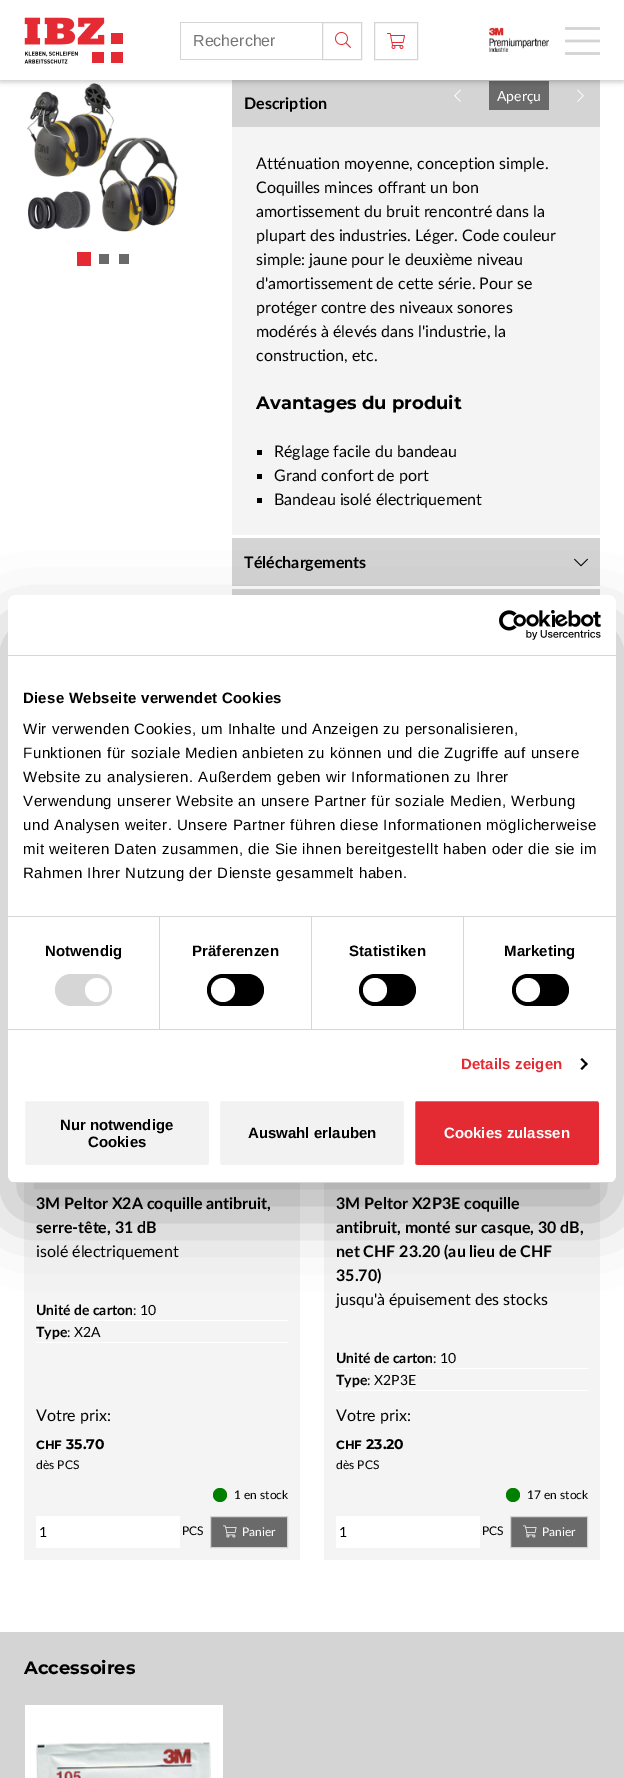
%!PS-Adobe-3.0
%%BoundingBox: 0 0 624 1778
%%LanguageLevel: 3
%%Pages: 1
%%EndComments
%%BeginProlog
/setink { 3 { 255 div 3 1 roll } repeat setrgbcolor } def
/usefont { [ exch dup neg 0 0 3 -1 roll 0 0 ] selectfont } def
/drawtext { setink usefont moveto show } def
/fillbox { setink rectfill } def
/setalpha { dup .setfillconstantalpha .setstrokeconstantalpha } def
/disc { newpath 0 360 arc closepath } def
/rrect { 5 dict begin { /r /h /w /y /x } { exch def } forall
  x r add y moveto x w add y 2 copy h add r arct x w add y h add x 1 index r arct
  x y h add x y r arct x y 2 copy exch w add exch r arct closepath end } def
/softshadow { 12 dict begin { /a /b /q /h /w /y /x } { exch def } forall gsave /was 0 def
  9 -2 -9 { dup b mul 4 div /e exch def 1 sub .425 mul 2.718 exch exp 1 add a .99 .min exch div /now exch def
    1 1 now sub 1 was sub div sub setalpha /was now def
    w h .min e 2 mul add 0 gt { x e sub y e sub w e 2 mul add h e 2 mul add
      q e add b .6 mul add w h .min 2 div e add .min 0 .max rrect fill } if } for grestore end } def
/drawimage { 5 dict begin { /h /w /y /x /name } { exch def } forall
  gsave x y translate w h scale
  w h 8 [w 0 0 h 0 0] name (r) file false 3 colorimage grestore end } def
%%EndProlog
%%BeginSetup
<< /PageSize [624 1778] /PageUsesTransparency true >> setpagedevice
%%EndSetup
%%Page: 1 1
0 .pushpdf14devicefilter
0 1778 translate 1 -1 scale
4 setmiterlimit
0 0 624 1778 255 255 255 fillbox
232 80 368 47 212 212 212 fillbox
(assets/img6.rgb) 454 89 7 13 drawimage
489 81 60 29 106 106 106 fillbox
(assets/img7.rgb) 577 89 7 13 drawimage
(assets/img8.rgb) 27 83 151 149 drawimage
0 0 0 setink
0 2 624 80 0 2.5 0.2 softshadow
0 0 624 80 255 255 255 fillbox
(assets/img1.rgb) 24 17 99 47 drawimage
180 22 142 1 212 212 212 fillbox
180 59 142 1 212 212 212 fillbox
180 22 1 38 212 212 212 fillbox
(Rechercher) 193 46 /LiberationSans-Regular 16 117 117 117 drawtext
212 212 212 setink
322.5 22.5 39 37 rectstroke
(assets/img2.rgb) 335 32 16 16 drawimage
374.5 22.5 43 37 rectstroke
(assets/img3.rgb) 387 33 18 16 drawimage
(assets/img4.rgb) 489 27 60 25 drawimage
(assets/img5.rgb) 565 27 35 28 drawimage
(Aperçu) 497 101 /Lato-Regular 14 255 255 255 drawtext
77 252 14 14 228 43 51 fillbox
99 254 10 10 106 106 106 fillbox
119 254 10 10 106 106 106 fillbox
(Description) 244 109 /Lato-Bold 16 0 0 0 drawtext
232 127 368 408 244 244 244 fillbox
(Atténuation moyenne, conception simple.) 256 169 /Lato-Regular 16 0 0 0 drawtext
(Coquilles minces offrant un bon) 256 193 /Lato-Regular 16 0 0 0 drawtext
(amortissement du bruit rencontré dans la) 256 217 /Lato-Regular 16 0 0 0 drawtext
(plupart des industries. Léger. Code couleur) 256 241 /Lato-Regular 16 0 0 0 drawtext
(simple: jaune pour le deuxième niveau) 256 265 /Lato-Regular 16 0 0 0 drawtext
(d'amortissement de cette série. Pour se) 256 289 /Lato-Regular 16 0 0 0 drawtext
(protéger contre des niveaux sonores) 256 313 /Lato-Regular 16 0 0 0 drawtext
(modérés à élevés dans l'industrie, la) 256 337 /Lato-Regular 16 0 0 0 drawtext
(construction, etc.) 256 361 /Lato-Regular 16 0 0 0 drawtext
(Avantages du produit) 256 409 /Montserrat-Bold 18 0 0 0 drawtext
257 450 5 5 0 0 0 fillbox
(Réglage facile du bandeau) 274 457 /Lato-Regular 16 0 0 0 drawtext
257 474 5 5 0 0 0 fillbox
(Grand confort de port) 274 481 /Lato-Regular 16 0 0 0 drawtext
257 498 5 5 0 0 0 fillbox
(Bandeau isolé électriquement) 274 505 /Lato-Regular 16 0 0 0 drawtext
232 538 368 48 212 212 212 fillbox
(Téléchargements) 244 568 /Lato-Bold 16 0 0 0 drawtext
(assets/img9.rgb) 574 558 14 9 drawimage
232 589 368 6 212 212 212 fillbox
24 1183 276 377 244 244 244 fillbox
(3M Peltor X2A coquille antibruit,) 36 1209 /Lato-Bold 16 0 0 0 drawtext
(serre-tête, 31 dB) 36 1233 /Lato-Bold 16 0 0 0 drawtext
(isolé électriquement) 36 1257 /Lato-Regular 16 0 0 0 drawtext
36 1320 252 1 255 255 255 fillbox
(Unité de carton) 36 1315 /Lato-Bold 14 0 0 0 drawtext
(: 10) 133 1315 /Lato-Regular 14 0 0 0 drawtext
36 1342 252 1 255 255 255 fillbox
(Type) 36 1337 /Lato-Bold 14 0 0 0 drawtext
(: X2A) 67 1337 /Lato-Regular 14 0 0 0 drawtext
(Votre prix:) 36 1421 /Lato-Regular 16 0 0 0 drawtext
(CHF) 36 1449 /Montserrat-Bold 12 0 0 0 drawtext
(35.70) 66 1449 /Montserrat-Bold 14 0 0 0 drawtext
(dès PCS) 36 1469 /Lato-Regular 12 0 0 0 drawtext
0 128 0 setink
220 1495 7 disc fill
(1 en stock) 234 1499 /Lato-Regular 12 0 0 0 drawtext
36 1516 144 32 255 255 255 fillbox
(1) 39 1537 /Lato-Regular 14 0 0 0 drawtext
(PCS) 182 1535 /Lato-Regular 12 0 0 0 drawtext
106 106 106 setink
210.5 1516.5 moveto 287.5 1516.5 lineto 287.5 1547.5 lineto 210.5 1547.5 lineto closepath gsave fill grestore
212 212 212 setink
stroke
(assets/img10.rgb) 223 1525 14 13 drawimage
(Panier) 242 1536 /Lato-Regular 12 255 255 255 drawtext
324 1183 276 377 244 244 244 fillbox
(3M Peltor X2P3E coquille) 336 1209 /Lato-Bold 16 0 0 0 drawtext
(antibruit, monté sur casque, 30 dB,) 336 1233 /Lato-Bold 16 0 0 0 drawtext
(net CHF 23.20 \(au lieu de CHF) 336 1257 /Lato-Bold 16 0 0 0 drawtext
(35.70\)) 336 1281 /Lato-Bold 16 0 0 0 drawtext
(jusqu'à épuisement des stocks) 336 1305 /Lato-Regular 16 0 0 0 drawtext
336 1368 252 1 255 255 255 fillbox
(Unité de carton) 336 1363 /Lato-Bold 14 0 0 0 drawtext
(: 10) 433 1363 /Lato-Regular 14 0 0 0 drawtext
336 1390 252 1 255 255 255 fillbox
(Type) 336 1385 /Lato-Bold 14 0 0 0 drawtext
(: X2P3E) 367 1385 /Lato-Regular 14 0 0 0 drawtext
(Votre prix:) 336 1421 /Lato-Regular 16 0 0 0 drawtext
(CHF) 336 1449 /Montserrat-Bold 12 0 0 0 drawtext
(23.20) 366 1449 /Montserrat-Bold 14 0 0 0 drawtext
(dès PCS) 336 1469 /Lato-Regular 12 0 0 0 drawtext
0 128 0 setink
513 1495 7 disc fill
(17 en stock) 527 1499 /Lato-Regular 12 0 0 0 drawtext
336 1516 144 32 255 255 255 fillbox
(1) 339 1537 /Lato-Regular 14 0 0 0 drawtext
(PCS) 482 1535 /Lato-Regular 12 0 0 0 drawtext
106 106 106 setink
510.5 1516.5 moveto 587.5 1516.5 lineto 587.5 1547.5 lineto 510.5 1547.5 lineto closepath gsave fill grestore
212 212 212 setink
stroke
(assets/img10.rgb) 523 1525 14 13 drawimage
(Panier) 542 1536 /Lato-Regular 12 255 255 255 drawtext
0 1632 624 146 212 212 212 fillbox
(Accessoires) 24 1674 /Montserrat-Bold 18 0 0 0 drawtext
25 1705 198 73 255 255 255 fillbox
(assets/img11.rgb) 35 1742 176 36 drawimage
0 0 0 setink
8 627 608 588 8 34 0.3 softshadow
255 255 255 setink
8 595 608 588 8 rrect fill
8 655 608 1 214 214 214 fillbox
(assets/img12.rgb) 499 610 102 30 drawimage
8 916 608 1 214 214 214 fillbox
/LiberationSans-Bold 15 usefont
0 0 0 setink
23 703 moveto 0.25 0 (Diese Webseite verwendet Cookies) ashow
/LiberationSans-Regular 15 usefont
23 734 moveto 0.5 0 (Wir verwenden Cookies, um Inhalte und Anzeigen zu personalisieren,) ashow
23 758 moveto 0.5 0 (Funktionen für soziale Medien anbieten zu können und die Zugriffe auf unsere) ashow
23 782 moveto 0.5 0 (Website zu analysieren. Außerdem geben wir Informationen zu Ihrer) ashow
23 806 moveto 0.5 0 (Verwendung unserer Website an unsere Partner für soziale Medien, Werbung) ashow
23 830 moveto 0.5 0 (und Analysen weiter. Unsere Partner führen diese Informationen möglicherweise) ashow
23 854 moveto 0.5 0 (mit weiteren Daten zusammen, die Sie ihnen bereitgestellt haben oder die sie im) ashow
23 878 moveto 0.5 0 (Rahmen Ihrer Nutzung der Dienste gesammelt haben.) ashow
8 1029 608 1 214 214 214 fillbox
159 917 1 112 214 214 214 fillbox
/LiberationSans-Bold 15 usefont
0 0 0 setink
45 956 moveto 0.1 0 (Notwendig) ashow
214 214 214 setink
55 974 57 32 16 rrect fill
255 255 255 setink
97 990 12 disc fill
311 917 1 112 214 214 214 fillbox
0 0 0 setink
192 956 moveto 0.1 0 (Präferenzen) ashow
207 974 57 32 16 rrect fill
255 255 255 setink
223 990 12 disc fill
463 917 1 112 214 214 214 fillbox
0 0 0 setink
349 956 moveto 0.1 0 (Statistiken) ashow
359 974 57 32 16 rrect fill
255 255 255 setink
375 990 12 disc fill
0 0 0 setink
504 956 moveto 0.1 0 (Marketing) ashow
512 974 57 32 16 rrect fill
255 255 255 setink
528 990 12 disc fill
228 43 51 setink
461 1069 moveto 0.1 0 (Details zeigen) ashow
0 0 0 setink
582 1058 moveto 587.5 1064 lineto 586.5 1065.5 lineto 580.5 1059.5 lineto closepath fill
586.5 1062.5 moveto 587.5 1064 lineto 582 1070 lineto 580.5 1068.5 lineto closepath fill
gsave
8 595 608 588 8 rrect clip newpath
8 1182 608 1 214 214 214 fillbox
grestore
242 242 242 setink
24 1100 186 66 3 rrect gsave fill grestore
255 255 255 setink
2 setlinewidth
stroke
(Nur notwendige) 60 1130 /LiberationSans-Bold 15 0 0 0 drawtext
(Cookies) 88 1147 /LiberationSans-Bold 15 0 0 0 drawtext
242 242 242 setink
219 1100 186 66 3 rrect gsave fill grestore
255 255 255 setink
stroke
(Auswahl erlauben) 248 1138 /LiberationSans-Bold 15 0 0 0 drawtext
228 43 51 setink
414 1100 186 66 3 rrect gsave fill grestore
255 255 255 setink
stroke
(Cookies zulassen) 444 1138 /LiberationSans-Bold 15 255 255 255 drawtext
.poppdf14devicefilter showpage
%%EOF
